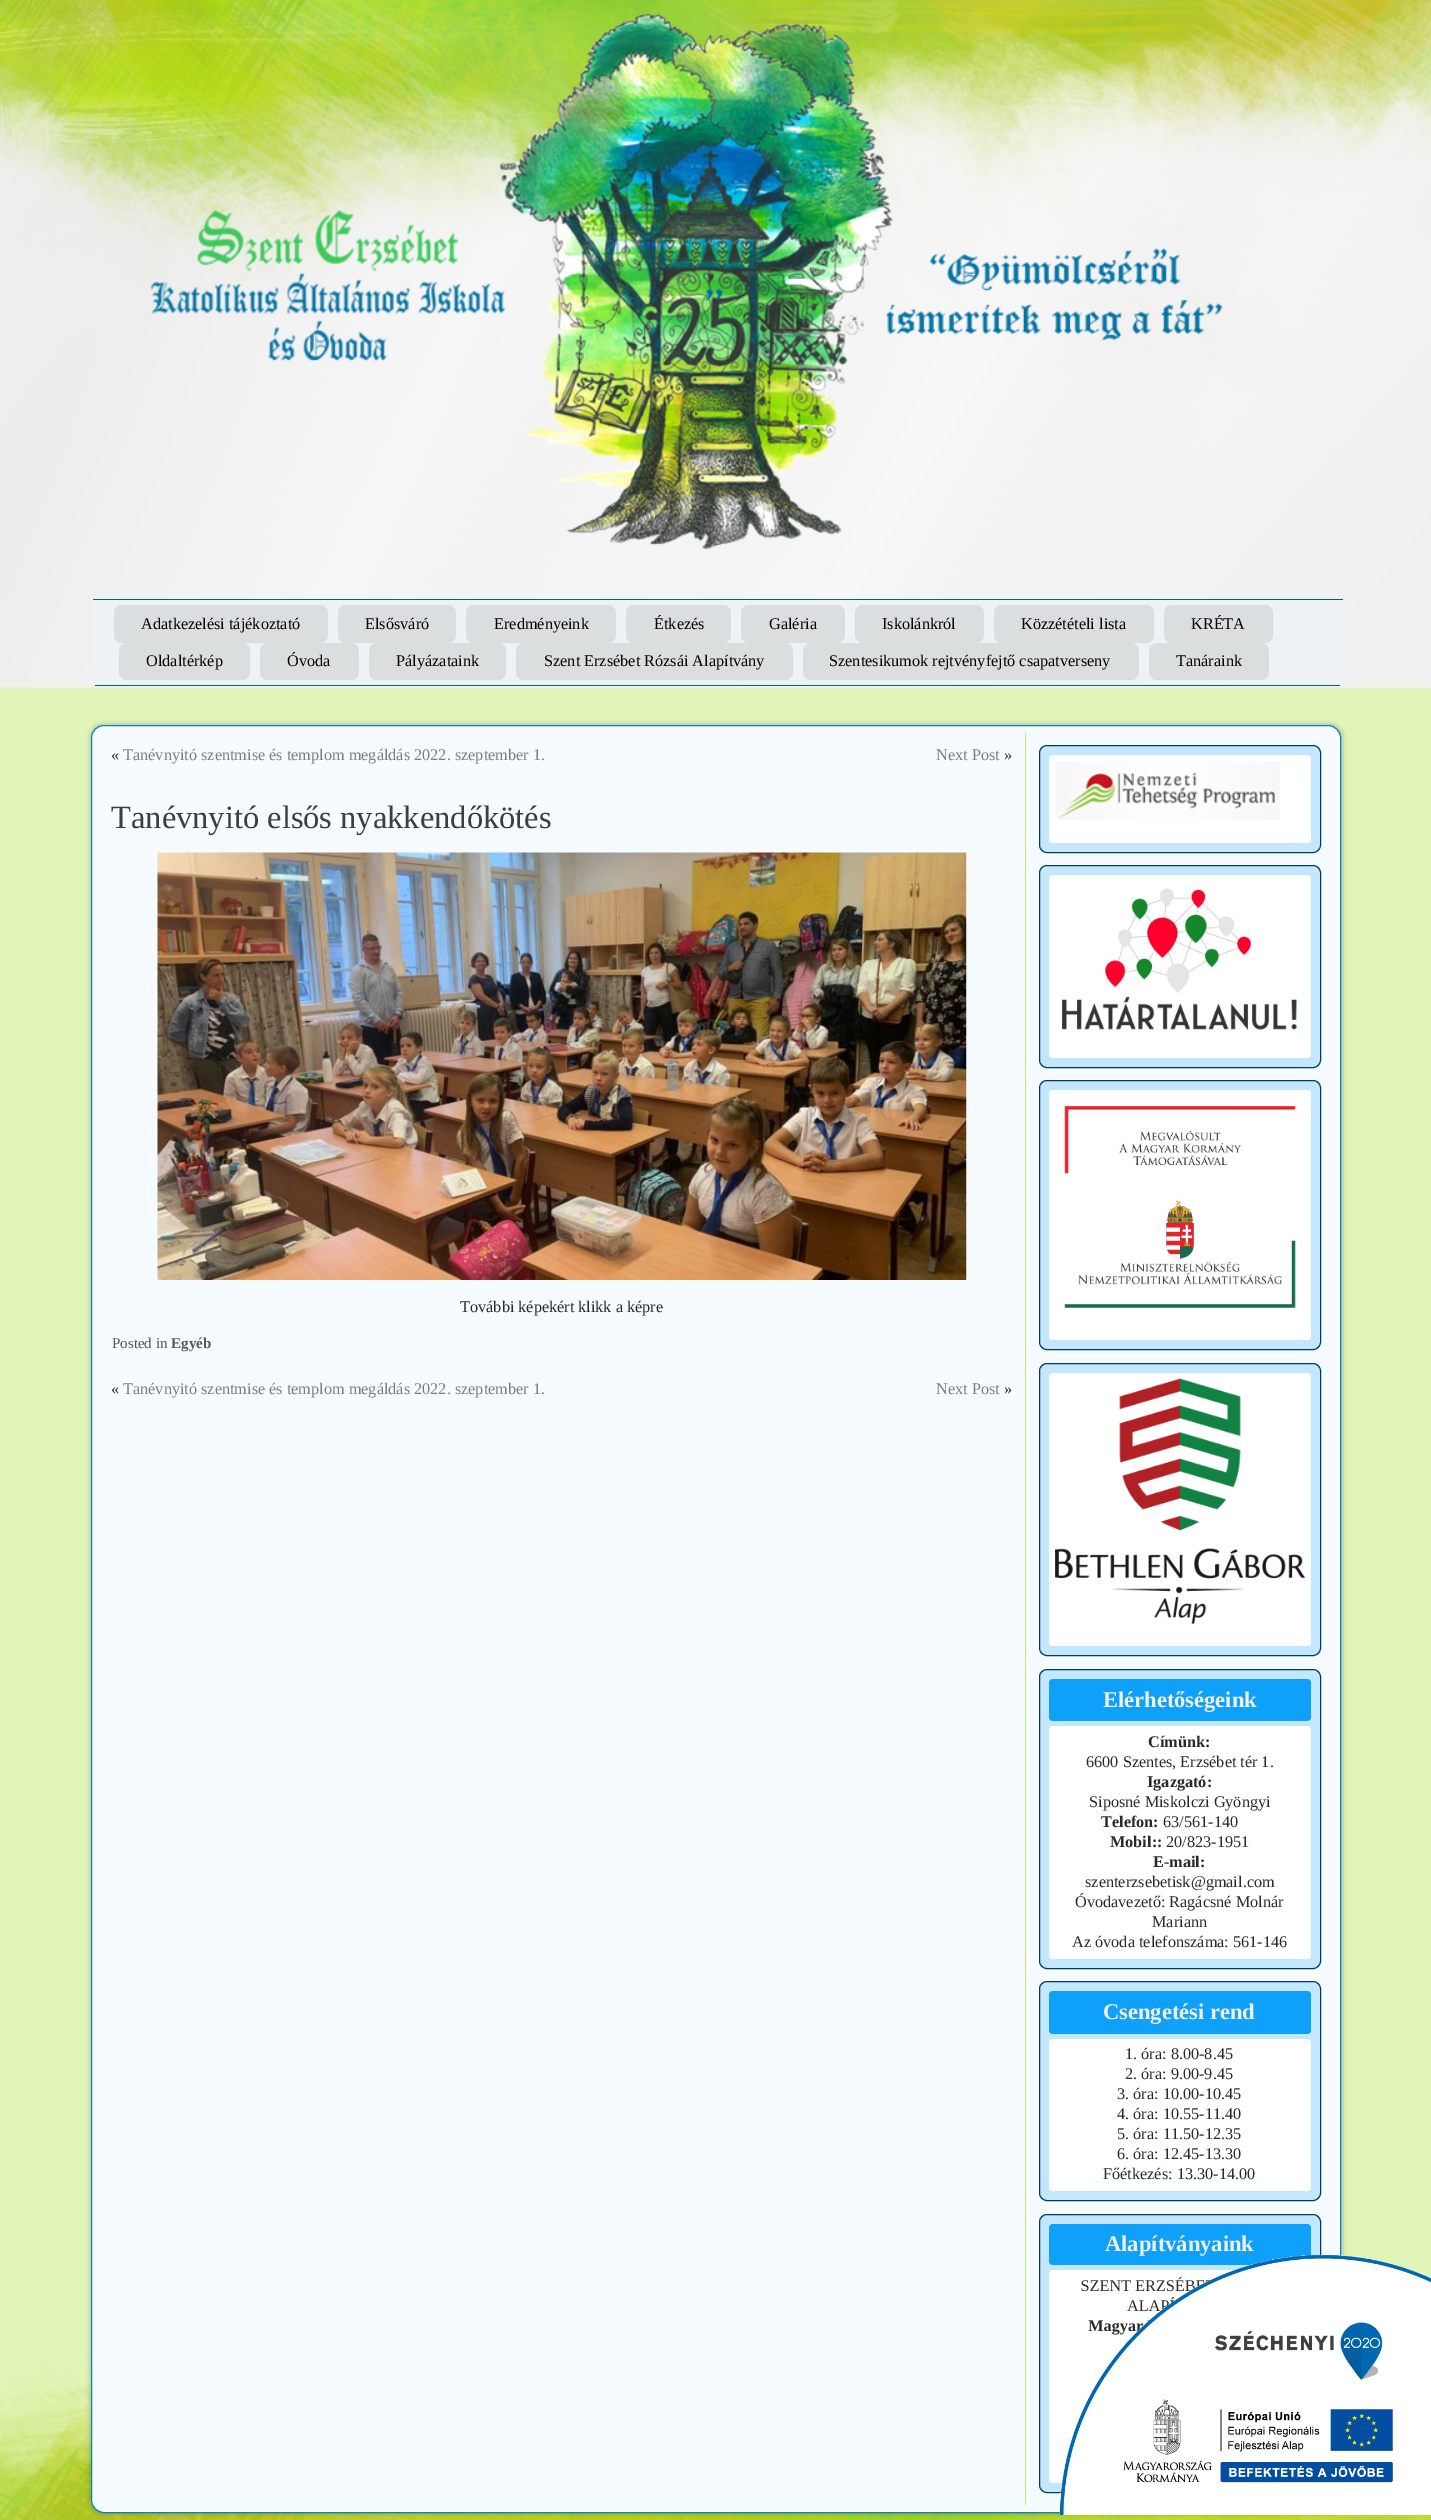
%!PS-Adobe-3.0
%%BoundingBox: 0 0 1431 2520
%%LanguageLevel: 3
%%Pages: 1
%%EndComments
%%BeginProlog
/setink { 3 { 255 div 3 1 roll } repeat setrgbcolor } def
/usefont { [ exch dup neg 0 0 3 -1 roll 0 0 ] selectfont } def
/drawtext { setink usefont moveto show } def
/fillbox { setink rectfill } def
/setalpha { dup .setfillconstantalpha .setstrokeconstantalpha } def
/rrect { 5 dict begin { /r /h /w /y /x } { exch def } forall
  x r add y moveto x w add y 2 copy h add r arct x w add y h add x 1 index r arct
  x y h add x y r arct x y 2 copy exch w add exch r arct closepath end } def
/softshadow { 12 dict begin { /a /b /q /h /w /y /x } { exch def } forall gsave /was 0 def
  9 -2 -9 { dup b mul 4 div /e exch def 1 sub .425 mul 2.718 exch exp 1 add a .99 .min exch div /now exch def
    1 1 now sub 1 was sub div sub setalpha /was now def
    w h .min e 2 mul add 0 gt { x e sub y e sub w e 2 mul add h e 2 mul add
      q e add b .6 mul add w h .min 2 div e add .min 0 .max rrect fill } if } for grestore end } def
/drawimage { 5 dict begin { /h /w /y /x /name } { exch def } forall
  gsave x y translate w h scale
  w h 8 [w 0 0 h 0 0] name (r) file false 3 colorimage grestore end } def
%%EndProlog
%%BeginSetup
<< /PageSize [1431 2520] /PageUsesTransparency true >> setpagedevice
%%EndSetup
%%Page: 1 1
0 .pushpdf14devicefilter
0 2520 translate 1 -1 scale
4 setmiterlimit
0 0 1431 2520 226 245 184 fillbox
(assets/img1.rgb) 0 2355 1431 165 drawimage
(assets/img2.rgb) 0 0 1431 688 drawimage
(assets/img3.rgb) 151 13 1072 537 drawimage
239 242 245 setink
93 599 moveto 1343 599 lineto 1343 681 lineto 1343 684 1341 686 1338 686 curveto 98 686 lineto 95 686 93 684 93 681 curveto closepath fill
93 599 1250 1 3 94 150 fillbox
95 685 1245 1 3 94 150 fillbox
219 222 223 setink
114 605 214 38 8 rrect fill
(Adatkezelési tájékoztató) 141 629 /LiberationSerif-Regular 16.25 0 0 0 drawtext
219 222 223 setink
338 605 118 38 8 rrect fill
(Elsősváró) 365 629 /LiberationSerif-Regular 16.25 0 0 0 drawtext
219 222 223 setink
466 605 150 38 8 rrect fill
(Eredményeink) 494 629 /LiberationSerif-Regular 16.25 0 0 0 drawtext
219 222 223 setink
626 605 105 38 8 rrect fill
(Étkezés) 654 629 /LiberationSerif-Regular 16.25 0 0 0 drawtext
219 222 223 setink
741 605 104 38 8 rrect fill
(Galéria) 769 629 /LiberationSerif-Regular 16.25 0 0 0 drawtext
219 222 223 setink
855 605 129 38 8 rrect fill
(Iskolánkról) 882 629 /LiberationSerif-Regular 16.25 0 0 0 drawtext
219 222 223 setink
994 605 160 38 8 rrect fill
(Közzétételi lista) 1021 629 /LiberationSerif-Regular 16.25 0 0 0 drawtext
219 222 223 setink
1164 605 109 38 8 rrect fill
(KRÉTA) 1191 629 /LiberationSerif-Regular 16.25 0 0 0 drawtext
219 222 223 setink
119 643 131 37 8 rrect fill
(Oldaltérkép) 146 666 /LiberationSerif-Regular 16.25 0 0 0 drawtext
219 222 223 setink
260 643 99 37 8 rrect fill
(Óvoda) 287 666 /LiberationSerif-Regular 16.25 0 0 0 drawtext
219 222 223 setink
369 643 137 37 8 rrect fill
(Pályázataink) 396 666 /LiberationSerif-Regular 16.25 0 0 0 drawtext
219 222 223 setink
516 643 277 37 8 rrect fill
(Szent Erzsébet Rózsái Alapítvány) 544 666 /LiberationSerif-Regular 16.25 0 0 0 drawtext
219 222 223 setink
803 643 336 37 8 rrect fill
(Szentesikumok rejtvényfejtő csapatverseny) 829 666 /LiberationSerif-Regular 16.25 0 0 0 drawtext
219 222 223 setink
1149 643 120 37 8 rrect fill
(Tanáraink) 1176 666 /LiberationSerif-Regular 16.25 0 0 0 drawtext
89 723 1255 1792 15 2 0.15 softshadow
245 251 255 setink
91.5 725.5 1249 1787 12.5 rrect gsave fill grestore
4 128 205 setink
stroke
(«) 111 760 /LiberationSerif-Regular 16.25 40 41 40 drawtext
(Tanévnyitó szentmise és templom megáldás 2022. szeptember 1.) 123 760 /LiberationSerif-Regular 16.25 124 126 124 drawtext
(Next Post) 936 760 /LiberationSerif-Regular 16.25 124 126 124 drawtext
(») 1004 760 /LiberationSerif-Regular 16.25 40 41 40 drawtext
(Tanévnyitó elsős nyakkendőkötés) 111 828 /LiberationSerif-Regular 32.5 61 62 61 drawtext
(assets/img4.rgb) 157 852 810 428 drawimage
(További képekért klikk a képre) 460 1312 /LiberationSerif-Regular 16.25 40 41 40 drawtext
(Posted in) 112 1348 /LiberationSerif-Regular 15 81 82 81 drawtext
(Egyéb) 171 1348 /LiberationSerif-Bold 15 86 88 86 drawtext
(«) 111 1394 /LiberationSerif-Regular 16.25 40 41 40 drawtext
(Tanévnyitó szentmise és templom megáldás 2022. szeptember 1.) 123 1394 /LiberationSerif-Regular 16.25 124 126 124 drawtext
(Next Post) 936 1394 /LiberationSerif-Regular 16.25 124 126 124 drawtext
(») 1004 1394 /LiberationSerif-Regular 16.25 40 41 40 drawtext
1025 733 1 1772 196 234 108 fillbox
195 231 254 setink
1039.5 745.5 281 107 7.5 rrect gsave fill grestore
2 59 95 setink
stroke
255 255 255 setink
1049 755 262 88 4 rrect fill
(assets/img5.rgb) 1055 761 225 59 drawimage
195 231 254 setink
1039.5 865.5 281 202 7.5 rrect gsave fill grestore
2 59 95 setink
stroke
255 255 255 setink
1049 875 262 183 4 rrect fill
(assets/img6.rgb) 1061 888 237 143 drawimage
195 231 254 setink
1039.5 1080.5 281 269 7.5 rrect gsave fill grestore
2 59 95 setink
stroke
255 255 255 setink
1049 1090 262 250 4 rrect fill
(assets/img7.rgb) 1061 1102 237 207 drawimage
195 231 254 setink
1039.5 1363.5 281 292 7.5 rrect gsave fill grestore
2 59 95 setink
stroke
255 255 255 setink
1049 1373 262 273 4 rrect fill
(assets/img8.rgb) 1055 1378 250 246 drawimage
195 231 254 setink
1039.5 1669.5 281 299 7.5 rrect gsave fill grestore
2 59 95 setink
stroke
15 160 250 setink
1049 1679 262 42 4 rrect fill
(Elérhetőségeink) 1103 1707 /LiberationSerif-Bold 22.5 240 240 240 drawtext
255 255 255 setink
1049 1726 262 233 4 rrect fill
(Címünk:) 1148 1747 /LiberationSerif-Bold 16.25 40 41 40 drawtext
(6600 Szentes, Erzsébet tér 1.) 1086 1767 /LiberationSerif-Regular 16.25 40 41 40 drawtext
(Igazgató:) 1147 1787 /LiberationSerif-Bold 16.25 40 41 40 drawtext
(Siposné Miskolczi Gyöngyi) 1089 1807 /LiberationSerif-Regular 16.25 40 41 40 drawtext
(Telefon:) 1101 1827 /LiberationSerif-Bold 16.25 40 41 40 drawtext
(63/561-140) 1163 1827 /LiberationSerif-Regular 16.25 40 41 40 drawtext
(Mobil::) 1110 1847 /LiberationSerif-Bold 16.25 40 41 40 drawtext
(20/823-1951) 1166 1847 /LiberationSerif-Regular 16.25 40 41 40 drawtext
(E-mail:) 1153 1867 /LiberationSerif-Bold 16.25 40 41 40 drawtext
(szenterzsebetisk@gmail.com) 1085 1887 /LiberationSerif-Regular 16.25 40 41 40 drawtext
(Óvodavezető: Ragácsné Molnár) 1075 1907 /LiberationSerif-Regular 16.25 40 41 40 drawtext
(Mariann) 1152 1927 /LiberationSerif-Regular 16.25 40 41 40 drawtext
(Az óvoda telefonszáma: 561-146) 1072 1947 /LiberationSerif-Regular 16.25 40 41 40 drawtext
195 231 254 setink
1039.5 1981.5 281 219 7.5 rrect gsave fill grestore
2 59 95 setink
stroke
15 160 250 setink
1049 1991 262 43 4 rrect fill
(Csengetési rend) 1103 2019 /LiberationSerif-Bold 22.5 240 240 240 drawtext
255 255 255 setink
1049 2039 262 152 4 rrect fill
(1. óra: 8.00-8.45) 1125 2059 /LiberationSerif-Regular 16.25 40 41 40 drawtext
(2. óra: 9.00-9.45) 1125 2079 /LiberationSerif-Regular 16.25 40 41 40 drawtext
(3. óra: 10.00-10.45) 1117 2099 /LiberationSerif-Regular 16.25 40 41 40 drawtext
(4. óra: 10.55-11.40) 1117 2119 /LiberationSerif-Regular 16.25 40 41 40 drawtext
(5. óra: 11.50-12.35) 1117 2139 /LiberationSerif-Regular 16.25 40 41 40 drawtext
(6. óra: 12.45-13.30) 1117 2159 /LiberationSerif-Regular 16.25 40 41 40 drawtext
(Főétkezés: 13.30-14.00) 1103 2179 /LiberationSerif-Regular 16.25 40 41 40 drawtext
195 231 254 setink
1039.5 2214.5 281 278 7.5 rrect gsave fill grestore
2 59 95 setink
stroke
15 160 250 setink
1049 2224 262 41 4 rrect fill
(Alapítványaink) 1105 2251 /LiberationSerif-Bold 22.5 240 240 240 drawtext
255 255 255 setink
1049 2270 262 213 4 rrect fill
(SZENT ERZSÉ) 1081 2291 /LiberationSerif-Regular 16.25 40 41 40 drawtext
(ALAP) 1127 2311 /LiberationSerif-Regular 16.25 40 41 40 drawtext
(Magyar) 1088 2331 /LiberationSerif-Bold 16.25 40 41 40 drawtext
(assets/img9.rgb) 1059 2254 372 261 drawimage
.poppdf14devicefilter showpage
%%EOF
